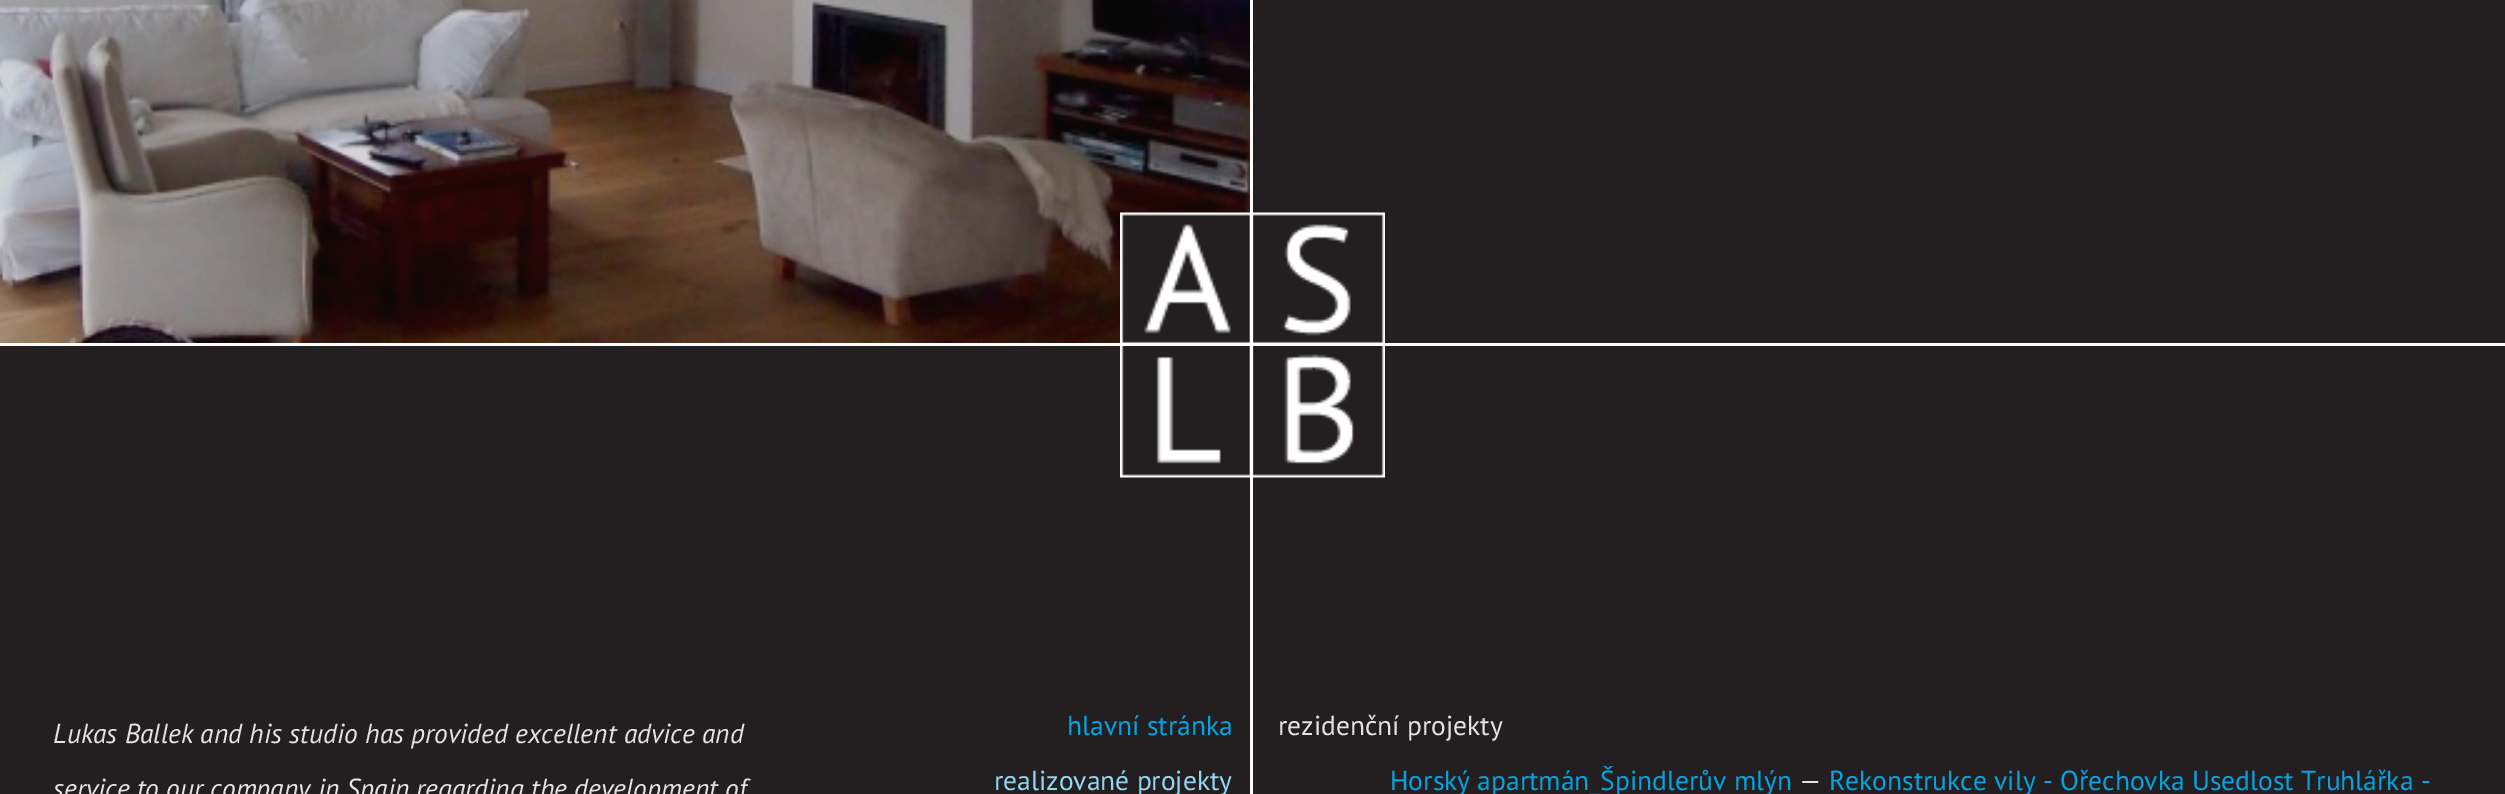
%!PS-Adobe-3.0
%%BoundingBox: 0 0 2505 794
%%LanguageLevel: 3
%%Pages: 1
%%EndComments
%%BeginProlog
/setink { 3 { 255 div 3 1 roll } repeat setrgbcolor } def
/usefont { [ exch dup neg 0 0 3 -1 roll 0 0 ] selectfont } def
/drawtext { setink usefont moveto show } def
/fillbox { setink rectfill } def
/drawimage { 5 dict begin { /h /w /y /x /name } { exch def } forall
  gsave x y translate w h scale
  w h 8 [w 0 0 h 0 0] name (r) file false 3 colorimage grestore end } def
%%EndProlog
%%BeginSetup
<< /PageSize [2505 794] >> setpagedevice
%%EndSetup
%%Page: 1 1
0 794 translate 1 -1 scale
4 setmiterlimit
0 0 2505 794 35 31 32 fillbox
(assets/img1.rgb) 0 0 1250 343 drawimage
(assets/img2.rgb) 1120 212 265 266 drawimage
0 343 2505 3 255 255 255 fillbox
1250 0 3 794 255 255 255 fillbox
(Lukas Ballek and his studio has provided excellent advice and) 53 743 /PTSans-Italic 27.5 227 227 227 drawtext
(service to our company in Spain regarding the development of) 53 798 /PTSans-Italic 27.5 227 227 227 drawtext
(hlavní stránka) 1067 735 /PTSans-Regular 27.5 2 165 226 drawtext
(realizované projekty) 994 790 /PTSans-Regular 27.5 146 216 242 drawtext
(rezidenční projekty) 1278 735 /PTSans-Regular 27.5 227 227 227 drawtext
(Horský apartmán_Špindlerův mlýn) 1390 790 /PTSans-Regular 27.5 2 165 226 drawtext
(—) 1799 790 /PTSans-Regular 27.5 227 227 227 drawtext
(Rekonstrukce vily - Ořechovka Usedlost Truhlářka -) 1829 790 /PTSans-Regular 27.5 2 165 226 drawtext
showpage
%%EOF
